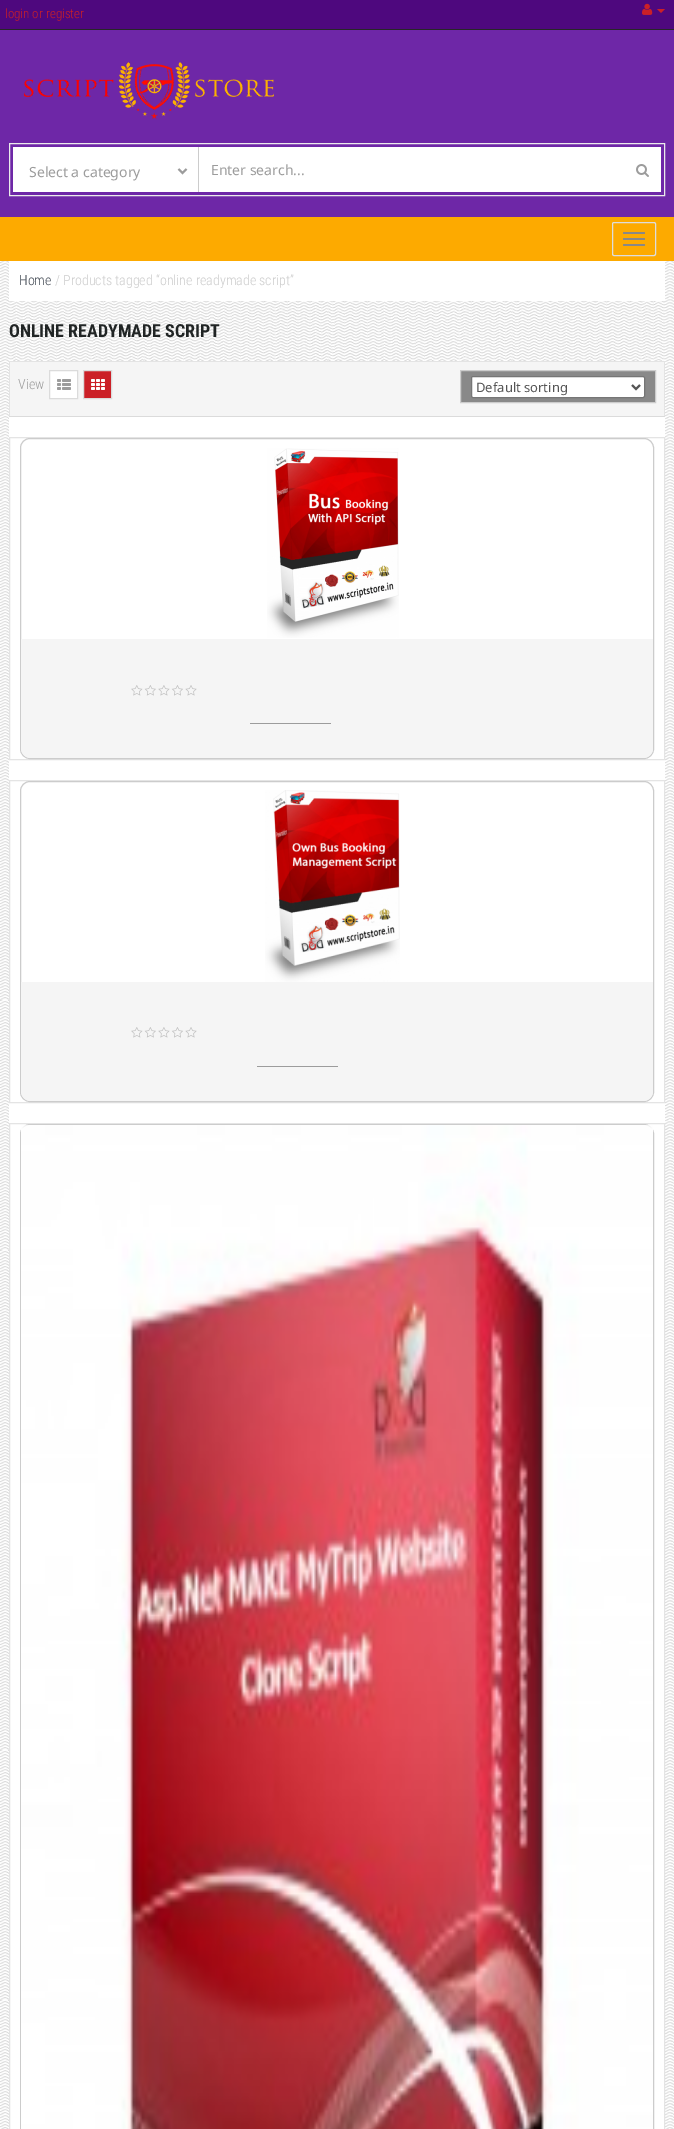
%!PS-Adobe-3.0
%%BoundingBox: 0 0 674 2129
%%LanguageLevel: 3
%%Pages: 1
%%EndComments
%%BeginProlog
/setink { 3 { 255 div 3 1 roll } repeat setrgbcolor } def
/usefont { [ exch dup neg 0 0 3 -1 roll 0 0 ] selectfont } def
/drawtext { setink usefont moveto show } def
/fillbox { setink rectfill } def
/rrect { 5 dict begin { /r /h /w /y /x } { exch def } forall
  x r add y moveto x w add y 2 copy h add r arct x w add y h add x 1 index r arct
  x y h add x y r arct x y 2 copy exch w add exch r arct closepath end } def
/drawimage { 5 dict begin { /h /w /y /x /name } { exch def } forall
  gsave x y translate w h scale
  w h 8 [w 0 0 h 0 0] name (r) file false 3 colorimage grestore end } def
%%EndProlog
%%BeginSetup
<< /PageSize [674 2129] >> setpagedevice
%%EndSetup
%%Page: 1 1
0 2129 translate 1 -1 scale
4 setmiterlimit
0 0 674 2129 255 255 255 fillbox
(assets/img1.rgb) 0 261 674 1868 drawimage
0 0 674 29 78 8 126 fillbox
(login or register) 5 18 /RobotoCondensed-Light 13 203 32 39 drawtext
(assets/img2.rgb) 642 3 11 12 drawimage
657 9 moveto 665 9 lineto 661 13 lineto closepath fill
0 29 674 1 39 39 39 fillbox
0 30 674 187 110 39 167 fillbox
(assets/img3.rgb) 24 62 250 57 drawimage
235 235 235 setink
9.5 143.5 655 52 rectstroke
13 147 648 45 255 255 255 fillbox
156 156 156 setink
2 setlinewidth
178.5 169 moveto 182.5 173 lineto 186.5 169 lineto stroke
(Select a category) 29 177 /NotoSans-Regular 14 156 156 156 drawtext
198 147 1 45 204 204 204 fillbox
(Enter search...) 211 175 /NotoSans-Regular 14 156 156 156 drawtext
(assets/img4.rgb) 636 164 13 13 drawimage
0 217 674 44 253 170 0 fillbox
221 221 221 setink
1 setlinewidth
612.5 222.5 43 33 1.5 rrect stroke
136 136 136 setink
623 232 22 2 1 rrect fill
623 238 22 2 1 rrect fill
623 244 22 2 1 rrect fill
9 261 656 40 255 255 255 fillbox
(Home) 19 285 /RobotoCondensed-Light 14 67 74 84 drawtext
(/ Products tagged “online readymade script”) 55 285 /RobotoCondensed-Light 14 204 204 204 drawtext
(ONLINE READYMADE SCRIPT) 9 337 /RobotoCondensed-Bold 18 33 37 37 drawtext
10 362 654 54 245 245 245 fillbox
9 361 656 1 228 228 228 fillbox
664 361 1 55 228 228 228 fillbox
9 361 1 55 228 228 228 fillbox
(View) 18 389 /RobotoCondensed-Light 14 156 156 156 drawtext
255 255 255 setink
49.5 370.5 moveto 77.5 370.5 lineto 77.5 398.5 lineto 49.5 398.5 lineto closepath gsave fill grestore
219 219 219 setink
stroke
(assets/img5.rgb) 57 379 14 11 drawimage
203 32 39 setink
83.5 370.5 moveto 111.5 370.5 lineto 111.5 398.5 lineto 83.5 398.5 lineto closepath gsave fill grestore
219 219 219 setink
stroke
(assets/img6.rgb) 91 379 14 11 drawimage
137 137 137 setink
460.5 370.5 moveto 655.5 370.5 lineto 655.5 402.5 lineto 460.5 402.5 lineto closepath gsave fill grestore
204 204 204 setink
stroke
255 255 255 setink
471.5 376.5 173 21 1.5 rrect gsave fill grestore
118 118 118 setink
stroke
85 85 85 setink
2 setlinewidth
632 385 moveto 636 389 lineto 640 385 lineto stroke
(Default sorting) 476 392 /NotoSans-Regular 13 85 85 85 drawtext
9 417 656 1712 255 255 255 fillbox
9 416 656 1 219 219 219 fillbox
228 228 228 setink
1 setlinewidth
9.5 437.5 655 322 rectstroke
204 204 204 setink
20.5 438.5 633 320 9.5 rrect stroke
(assets/img7.rgb) 267 448 132 190 drawimage
245 245 245 setink
21 639 moveto 653 639 lineto 653 748 lineto 653 753.5 648.5 758 643 758 curveto 31 758 lineto 25.5 758 21 753.5 21 748 curveto closepath fill
(assets/img8.rgb) 131 685 66 11 drawimage
250 723 81 1 156 156 156 fillbox
228 228 228 setink
9.5 780.5 655 322 rectstroke
204 204 204 setink
20.5 781.5 633 320 9.5 rrect stroke
(assets/img9.rgb) 265 790 135 192 drawimage
245 245 245 setink
21 982 moveto 653 982 lineto 653 1091 lineto 653 1096.5 648.5 1101 643 1101 curveto 31 1101 lineto 25.5 1101 21 1096.5 21 1091 curveto closepath fill
(assets/img8.rgb) 131 1027 66 11 drawimage
257 1066 81 1 156 156 156 fillbox
228 228 228 setink
9.5 1123.5 655 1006 rectstroke
204 204 204 setink
20.5 1124.5 633 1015 9.5 rrect stroke
(assets/img10.rgb) 21 1125 632 1004 drawimage
showpage
%%EOF
